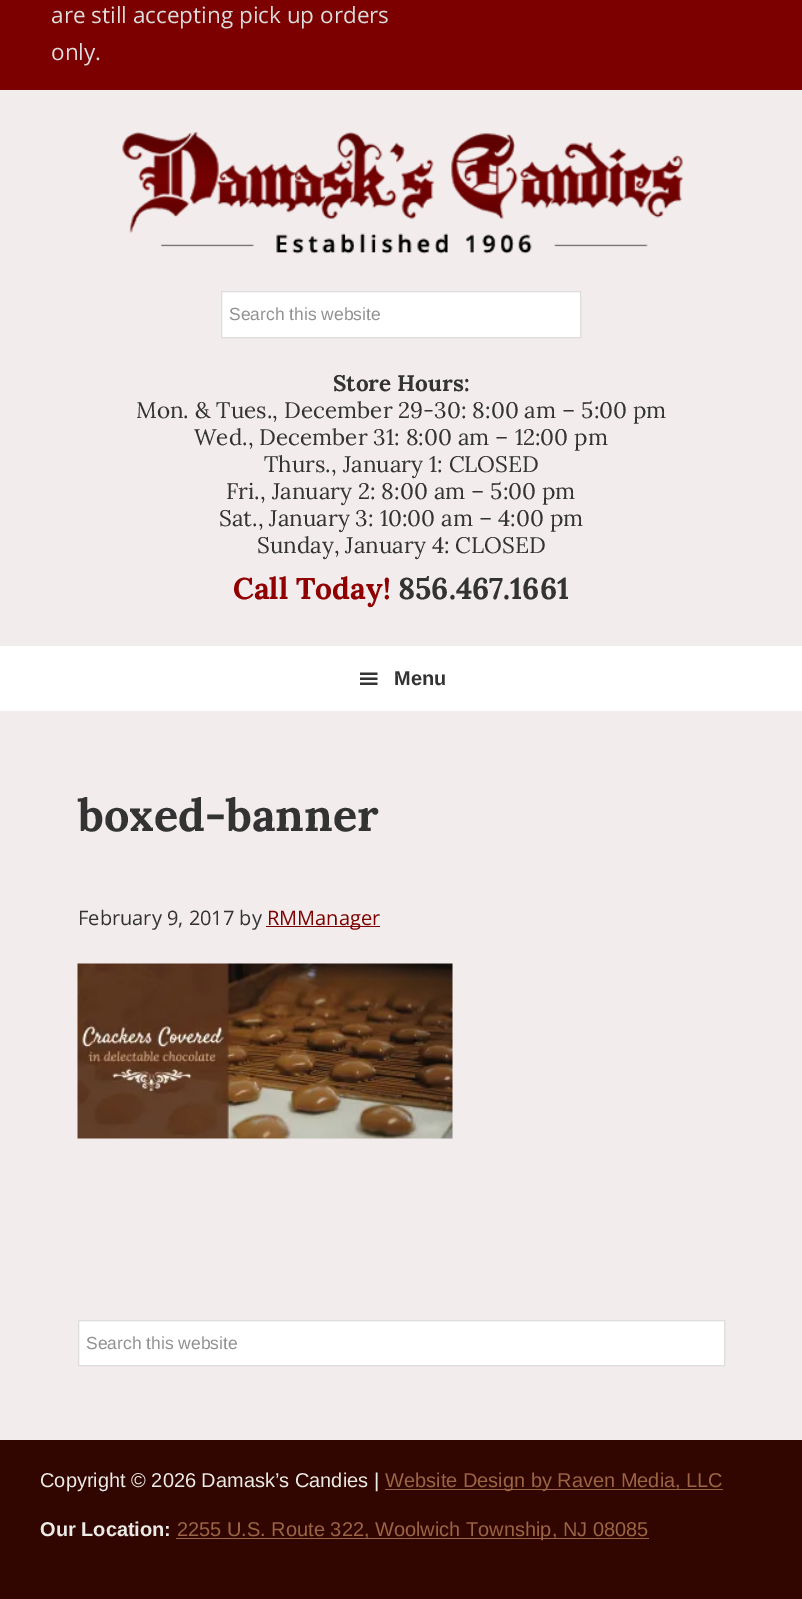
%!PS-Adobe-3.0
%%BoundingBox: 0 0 802 1599
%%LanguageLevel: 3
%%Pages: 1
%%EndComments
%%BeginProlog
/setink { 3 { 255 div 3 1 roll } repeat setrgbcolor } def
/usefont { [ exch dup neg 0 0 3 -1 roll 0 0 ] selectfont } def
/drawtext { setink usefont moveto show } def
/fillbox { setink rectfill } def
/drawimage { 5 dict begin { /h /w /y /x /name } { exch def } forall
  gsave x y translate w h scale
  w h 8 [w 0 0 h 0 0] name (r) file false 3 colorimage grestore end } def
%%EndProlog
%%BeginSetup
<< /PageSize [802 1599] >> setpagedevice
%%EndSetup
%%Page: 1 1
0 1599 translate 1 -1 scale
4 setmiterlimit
0 0 802 1599 242 236 236 fillbox
0 0 802 90 124 0 0 fillbox
(are still accepting pick up orders) 51 23 /OpenSans-Regular 22.5 221 221 221 drawtext
(only.) 51 60 /OpenSans-Regular 22.5 221 221 221 drawtext
(assets/img1.rgb) 122 132 561 122 drawimage
255 255 255 setink
221.5 291.5 moveto 580.5 291.5 lineto 580.5 337.5 lineto 221.5 337.5 lineto closepath gsave fill grestore
221 221 221 setink
stroke
(Search this website) 229 320 /LiberationSans-Regular 17.5 145 145 145 drawtext
(Store Hours:) 333 391 /Lora-Bold 22.5 51 51 51 drawtext
(Mon. & Tues., December 29-30: 8:00 am – 5:00 pm) 136 418 /Lora-Regular 22.5 51 51 51 drawtext
(Wed., December 31: 8:00 am – 12:00 pm) 194 445 /Lora-Regular 22.5 51 51 51 drawtext
(Thurs., January 1: CLOSED) 264 472 /Lora-Regular 22.5 51 51 51 drawtext
(Fri., January 2: 8:00 am – 5:00 pm) 226 499 /Lora-Regular 22.5 51 51 51 drawtext
(Sat., January 3: 10:00 am – 4:00 pm) 219 526 /Lora-Regular 22.5 51 51 51 drawtext
(Sunday, January 4: CLOSED) 257 553 /Lora-Regular 22.5 51 51 51 drawtext
(Call Today!) 233 599 /Lora-Bold 30 144 0 0 drawtext
(856.467.1661) 398 599 /Lora-Bold 30 51 51 51 drawtext
0 646 802 65 255 255 255 fillbox
0 645 802 1 238 238 238 fillbox
(assets/img2.rgb) 360 672 18 13 drawimage
(Menu) 394 685 /LiberationSans-Bold 20 51 51 51 drawtext
(boxed-banner) 78 831 /Lora-Bold 45 51 51 51 drawtext
(February 9, 2017 by) 78 925 /OpenSans-Regular 20 51 51 51 drawtext
266 926 114 1 124 0 0 fillbox
(RMManager) 267 925 /OpenSans-Regular 20 124 0 0 drawtext
(assets/img3.rgb) 77 963 376 176 drawimage
255 255 255 setink
78.5 1320.5 moveto 724.5 1320.5 lineto 724.5 1365.5 lineto 78.5 1365.5 lineto closepath gsave fill grestore
221 221 221 setink
stroke
(Search this website) 86 1349 /LiberationSans-Regular 17.5 145 145 145 drawtext
0 1440 802 159 49 6 0 fillbox
(Copyright © 2026 Damask’s Candies |) 40 1487 /LiberationSans-Regular 20 236 234 230 drawtext
385 1489 338 1 154 100 69 fillbox
(Website Design by Raven Media, LLC) 385 1487 /LiberationSans-Regular 20 154 100 69 drawtext
(Our Location:) 40 1536 /LiberationSans-Bold 20 236 234 230 drawtext
176 1538 473 1 154 100 69 fillbox
(2255 U.S. Route 322, Woolwich Township, NJ 08085) 177 1536 /LiberationSans-Regular 20 154 100 69 drawtext
showpage
%%EOF
